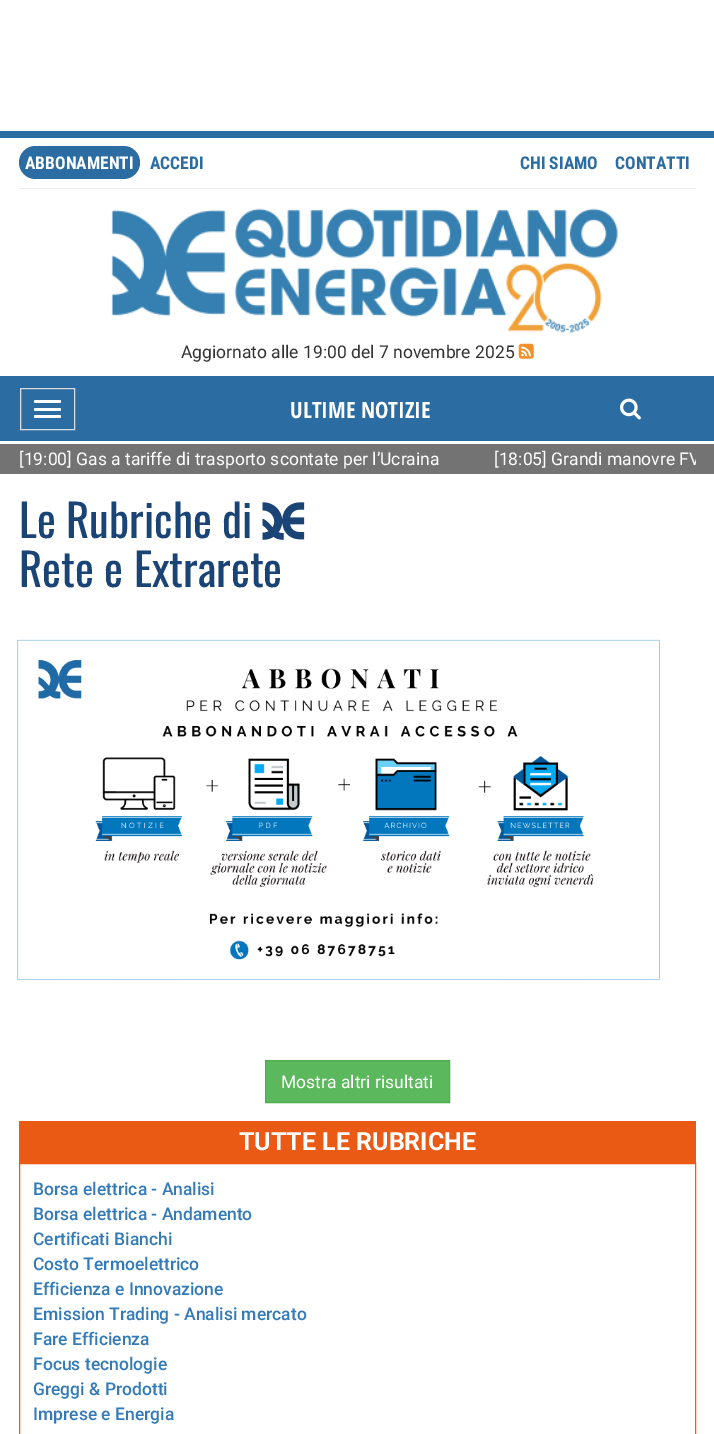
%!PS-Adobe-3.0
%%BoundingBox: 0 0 714 1434
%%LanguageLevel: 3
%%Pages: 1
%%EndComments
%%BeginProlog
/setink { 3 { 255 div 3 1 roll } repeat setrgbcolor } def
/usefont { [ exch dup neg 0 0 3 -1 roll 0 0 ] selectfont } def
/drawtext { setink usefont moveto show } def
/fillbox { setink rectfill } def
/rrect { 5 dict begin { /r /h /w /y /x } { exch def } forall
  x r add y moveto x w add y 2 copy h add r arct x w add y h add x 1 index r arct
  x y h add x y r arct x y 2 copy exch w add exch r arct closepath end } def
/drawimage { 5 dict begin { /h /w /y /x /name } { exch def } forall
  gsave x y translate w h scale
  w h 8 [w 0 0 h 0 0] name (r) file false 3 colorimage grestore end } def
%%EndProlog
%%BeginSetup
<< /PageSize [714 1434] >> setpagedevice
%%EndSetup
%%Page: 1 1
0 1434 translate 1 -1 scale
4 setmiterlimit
0 0 714 1434 255 255 255 fillbox
0 131 714 7 43 108 163 fillbox
19 188 677 1 238 238 238 fillbox
43 108 163 setink
19 146 121 33 16.5 rrect fill
(ABBONAMENTI) 25 169 /RobotoCondensed-Bold 17.5 255 255 255 drawtext
(ACCEDI) 150 169 /RobotoCondensed-Bold 17.5 43 108 163 drawtext
(CHI SIAMO) 520 169 /RobotoCondensed-Bold 17.5 43 108 163 drawtext
(CONTATTI) 615 169 /RobotoCondensed-Bold 17.5 43 108 163 drawtext
(assets/img1.rgb) 111 208 507 125 drawimage
(Aggiornato alle 19:00 del 7 novembre 2025) 181 358 /Roboto-Regular 17.5 51 51 51 drawtext
(assets/img2.rgb) 518 343 16 16 drawimage
0 376 714 65 43 108 163 fillbox
221 221 221 setink
20.5 388.5 54 41 rectstroke
255 255 255 setink
34 400 27 3 1.5 rrect fill
34 408 27 3 1.5 rrect fill
34 415 27 3 1.5 rrect fill
(ULTIME NOTIZIE) 290 418 /OpenSansCondensed-Bold 22.5 255 255 255 drawtext
(assets/img3.rgb) 620 398 21 22 drawimage
0 444 714 30 115 115 115 fillbox
([19:00] Gas a tariffe di trasporto scontate per l’Ucraina) 19 465 /Roboto-Regular 17.5 255 255 255 drawtext
gsave
19 444 677 30 rectclip
([18:05] Grandi manovre FV) 494 465 /Roboto-Regular 17.5 255 255 255 drawtext
grestore
(Le Rubriche di) 19 538 /Oswald-Regular 45 25 68 117 drawtext
(assets/img4.rgb) 262 502 43 38 drawimage
(Rete e Extrarete) 19 587 /Oswald-Regular 45 25 68 117 drawtext
(assets/img5.rgb) 17 639 643 342 drawimage
92 184 92 setink
265.5 1060.5 moveto 449.5 1060.5 lineto 449.5 1102.5 lineto 265.5 1102.5 lineto closepath gsave fill grestore
76 174 76 setink
stroke
(Mostra altri risultati) 281 1088 /Roboto-Regular 17.5 255 255 255 drawtext
19 1121 677 42 235 90 21 fillbox
(TUTTE LE RUBRICHE) 239 1150 /Roboto-Bold 25 255 255 255 drawtext
235 90 21 setink
19.5 1163.5 676 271 rectstroke
(Borsa elettrica - Analisi) 33 1195 /Roboto-Medium 17.5 51 122 183 drawtext
(Borsa elettrica - Andamento) 33 1220 /Roboto-Medium 17.5 51 122 183 drawtext
(Certificati Bianchi) 33 1245 /Roboto-Medium 17.5 51 122 183 drawtext
(Costo Termoelettrico) 33 1270 /Roboto-Medium 17.5 51 122 183 drawtext
(Efficienza e Innovazione) 33 1295 /Roboto-Medium 17.5 51 122 183 drawtext
(Emission Trading - Analisi mercato) 33 1320 /Roboto-Medium 17.5 51 122 183 drawtext
(Fare Efficienza) 33 1345 /Roboto-Medium 17.5 51 122 183 drawtext
(Focus tecnologie) 33 1370 /Roboto-Medium 17.5 51 122 183 drawtext
(Greggi & Prodotti) 33 1395 /Roboto-Medium 17.5 51 122 183 drawtext
(Imprese e Energia) 33 1420 /Roboto-Medium 17.5 51 122 183 drawtext
showpage
%%EOF
